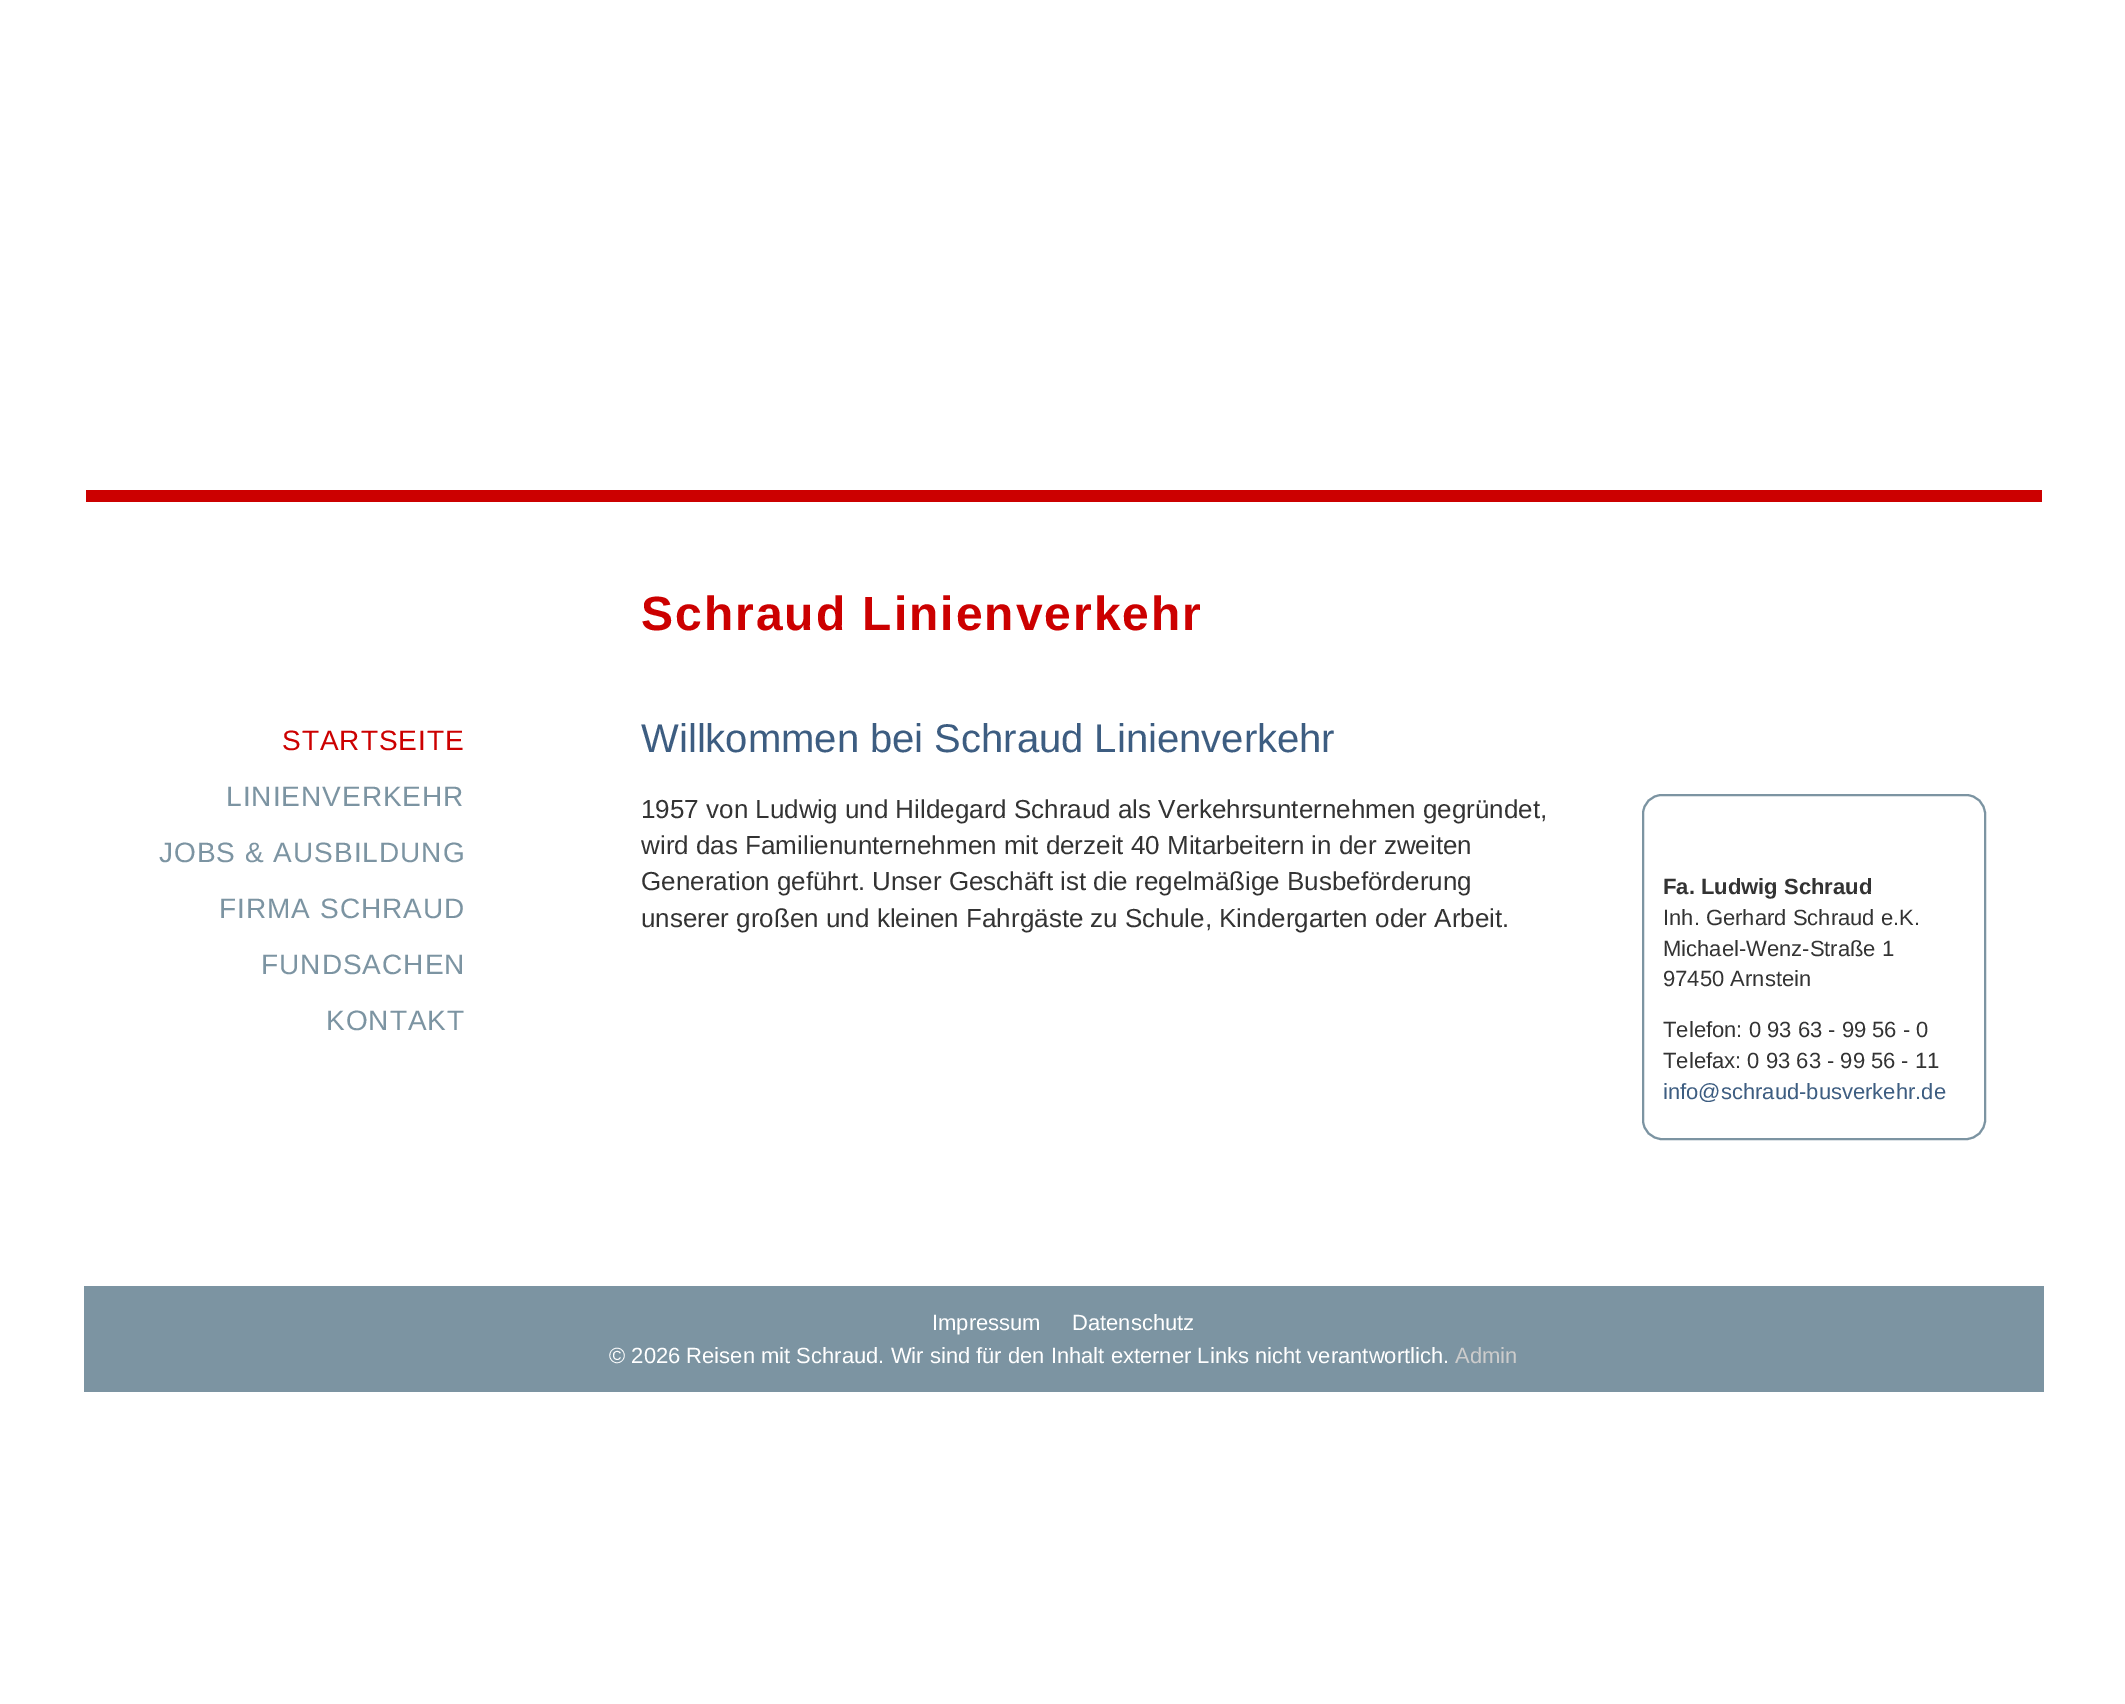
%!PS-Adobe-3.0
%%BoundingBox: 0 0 2125 1704
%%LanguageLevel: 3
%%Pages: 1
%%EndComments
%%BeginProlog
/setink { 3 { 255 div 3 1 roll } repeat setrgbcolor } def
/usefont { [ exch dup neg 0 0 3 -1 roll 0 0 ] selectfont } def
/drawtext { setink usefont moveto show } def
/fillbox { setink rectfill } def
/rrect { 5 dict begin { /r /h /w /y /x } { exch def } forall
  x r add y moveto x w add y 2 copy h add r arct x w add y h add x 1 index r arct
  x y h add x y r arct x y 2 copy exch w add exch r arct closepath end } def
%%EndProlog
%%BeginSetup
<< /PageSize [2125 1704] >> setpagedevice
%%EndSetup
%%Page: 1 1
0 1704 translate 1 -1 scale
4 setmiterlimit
0 0 2125 1704 255 255 255 fillbox
86 490 1956 12 204 0 0 fillbox
/LiberationSans-Regular 28 usefont
282 750 moveto 1 0 (STARTSEITE) ashow
124 148 162 setink
226 806 moveto 1 0 (LINIENVERKEHR) ashow
159 862 moveto 1 0 (JOBS & AUSBILDUNG) ashow
219 918 moveto 1 0 (FIRMA SCHRAUD) ashow
261 974 moveto 1 0 (FUNDSACHEN) ashow
326 1030 moveto 1 0 (KONTAKT) ashow
/LiberationSans-Bold 48 usefont
204 0 0 setink
641 630 moveto 2 0 (Schraud Linienverkehr) ashow
(Willkommen bei Schraud Linienverkehr) 641 752 /LiberationSans-Regular 40 61 93 129 drawtext
(1957 von Ludwig und Hildegard Schraud als Verkehrsunternehmen gegründet,) 641 818 /LiberationSans-Regular 26 51 51 51 drawtext
(wird das Familienunternehmen mit derzeit 40 Mitarbeitern in der zweiten) 641 854 /LiberationSans-Regular 26 51 51 51 drawtext
(Generation geführt. Unser Geschäft ist die regelmäßige Busbeförderung) 641 890 /LiberationSans-Regular 26 51 51 51 drawtext
(unserer großen und kleinen Fahrgäste zu Schule, Kindergarten oder Arbeit.) 641 927 /LiberationSans-Regular 26 51 51 51 drawtext
124 148 162 setink
2 setlinewidth
1643 795 342 344 19 rrect stroke
(Fa. Ludwig Schraud) 1663 894 /LiberationSans-Bold 22 51 51 51 drawtext
(Inh. Gerhard Schraud e.K.) 1663 925 /LiberationSans-Regular 22 51 51 51 drawtext
(Michael-Wenz-Straße 1) 1663 956 /LiberationSans-Regular 22 51 51 51 drawtext
(97450 Arnstein) 1663 986 /LiberationSans-Regular 22 51 51 51 drawtext
(Telefon: 0 93 63 - 99 56 - 0) 1663 1037 /LiberationSans-Regular 22 51 51 51 drawtext
(Telefax: 0 93 63 - 99 56 - 11) 1663 1068 /LiberationSans-Regular 22 51 51 51 drawtext
(info@schraud-busverkehr.de) 1663 1099 /LiberationSans-Regular 22 61 93 129 drawtext
84 1286 1960 106 124 148 162 fillbox
(Impressum) 932 1330 /LiberationSans-Regular 22 255 255 255 drawtext
(Datenschutz) 1072 1330 /LiberationSans-Regular 22 255 255 255 drawtext
(© 2026 Reisen mit Schraud. Wir sind für den Inhalt externer Links nicht verantwortlich.) 609 1363 /LiberationSans-Regular 22 255 255 255 drawtext
(Admin) 1455 1363 /LiberationSans-Regular 22 204 204 204 drawtext
showpage
%%EOF
